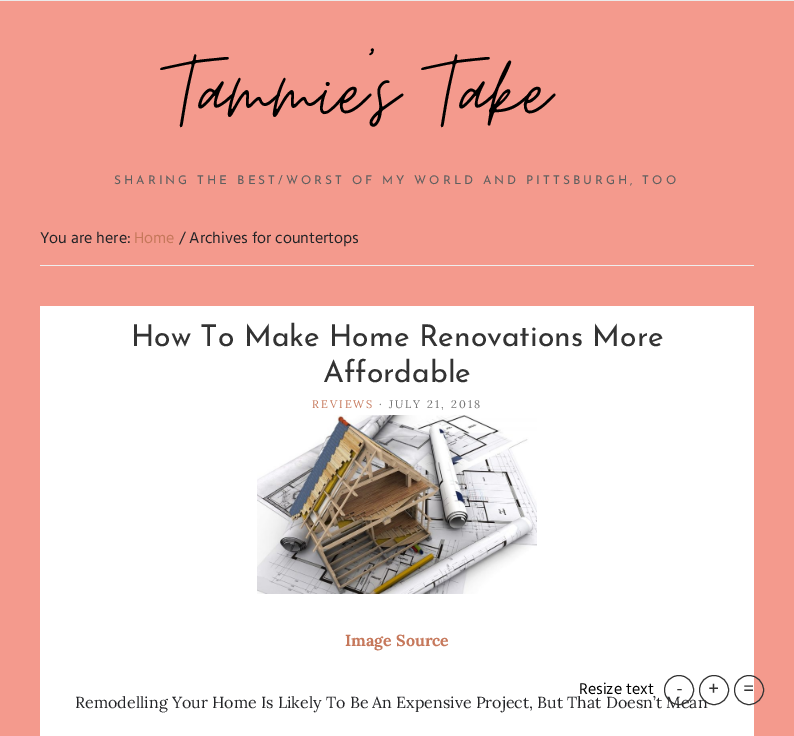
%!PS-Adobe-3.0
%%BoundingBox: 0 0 794 736
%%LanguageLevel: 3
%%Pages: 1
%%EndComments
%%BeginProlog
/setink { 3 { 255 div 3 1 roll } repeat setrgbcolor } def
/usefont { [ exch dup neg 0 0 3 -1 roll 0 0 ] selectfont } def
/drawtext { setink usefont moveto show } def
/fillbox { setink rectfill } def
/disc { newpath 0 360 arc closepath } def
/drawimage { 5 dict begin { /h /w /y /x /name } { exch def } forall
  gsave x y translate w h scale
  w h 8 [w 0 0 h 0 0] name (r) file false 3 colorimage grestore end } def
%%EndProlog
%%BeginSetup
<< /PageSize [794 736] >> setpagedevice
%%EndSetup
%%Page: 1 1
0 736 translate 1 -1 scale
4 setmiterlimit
0 0 794 736 244 154 141 fillbox
0 0 794 1 235 235 235 fillbox
(Tammie's Take~) 170 118 /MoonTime-Regular 110 0 0 0 drawtext
/JosefinSans-Regular 12 usefont
95 95 95 setink
114 184 moveto 3 0 (SHARING THE BEST/WORST OF MY WORLD AND PITTSBURGH, TOO) ashow
40 265 714 1 238 238 238 fillbox
(You are here:) 40 243 /Hind-Regular 16 35 36 39 drawtext
(Home) 134 243 /Hind-Regular 16 198 120 91 drawtext
(/ Archives for countertops) 179 243 /Hind-Regular 16 35 36 39 drawtext
40 306 714 430 255 255 255 fillbox
(How To Make Home Renovations More) 131 346 /JosefinSans-Regular 30 51 51 51 drawtext
(Affordable) 323 382 /JosefinSans-Regular 30 51 51 51 drawtext
/Lora-Regular 11 usefont
198 120 91 setink
312 408 moveto 2 0 (REVIEWS) ashow
117 117 117 setink
379 408 moveto 2 0 (· JULY 21, 2018) ashow
(assets/img1.rgb) 257 415 280 179 drawimage
(Image Source) 345 646 /Lora-Bold 16 198 120 91 drawtext
(Remodelling Your Home Is Likely To Be An Expensive Project, But That Doesn’t Mean) 75 708 /Lora-Regular 16 35 36 39 drawtext
(Resize text) 579 694 /Hind-Regular 16 0 0 0 drawtext
51 51 51 setink
679 690 14.5 disc stroke
(-) 676 695 /Hind-Regular 20 51 51 51 drawtext
714 690 14.5 disc stroke
(+) 708 695 /Hind-Regular 20 51 51 51 drawtext
749 690 14.5 disc stroke
(=) 743 695 /Hind-Regular 20 51 51 51 drawtext
showpage
%%EOF
